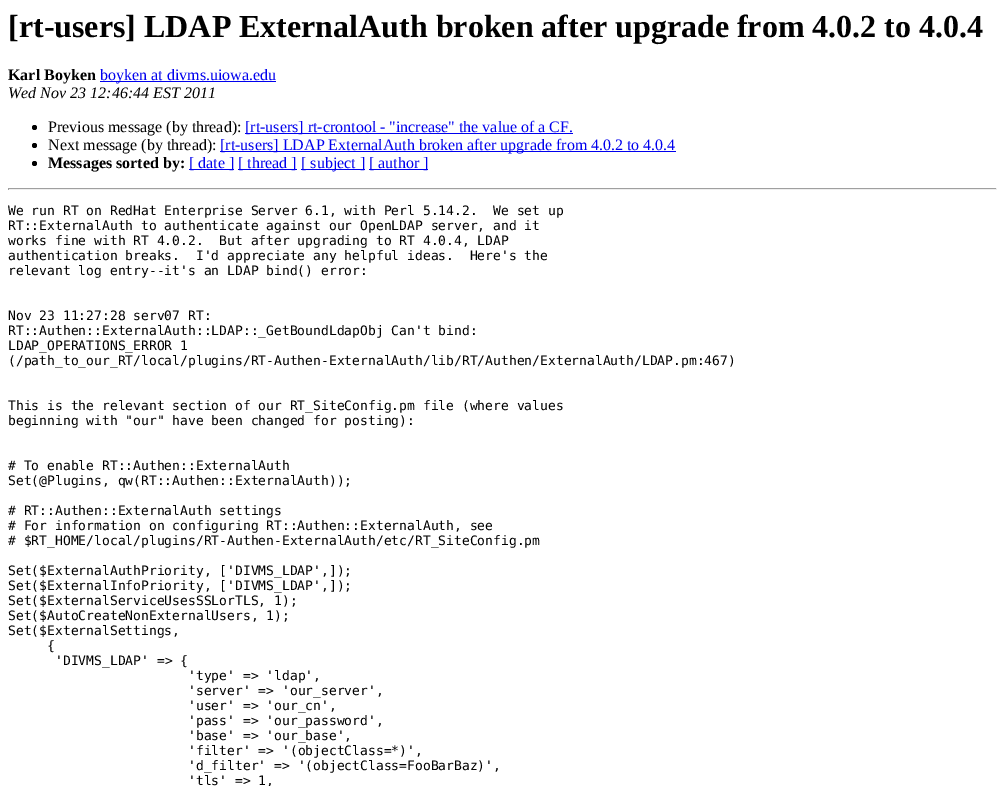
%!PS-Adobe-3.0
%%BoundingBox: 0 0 1005 786
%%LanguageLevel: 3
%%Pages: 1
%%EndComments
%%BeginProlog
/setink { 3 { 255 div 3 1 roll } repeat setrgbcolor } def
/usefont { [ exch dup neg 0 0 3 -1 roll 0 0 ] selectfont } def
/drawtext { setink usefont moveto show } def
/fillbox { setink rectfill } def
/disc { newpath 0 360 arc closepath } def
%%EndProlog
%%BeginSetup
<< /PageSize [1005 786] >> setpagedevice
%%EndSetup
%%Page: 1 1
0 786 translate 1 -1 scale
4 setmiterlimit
0 0 1005 786 255 255 255 fillbox
([rt-users] LDAP ExternalAuth broken after upgrade from 4.0.2 to 4.0.4) 8 37 /LiberationSerif-Bold 32 0 0 0 drawtext
(Karl Boyken) 8 80 /LiberationSerif-Bold 16 0 0 0 drawtext
100 81 176 1 0 0 238 fillbox
(boyken at divms.uiowa.edu) 100 80 /LiberationSerif-Regular 16 0 0 238 drawtext
(Wed Nov 23 12:46:44 EST 2011) 8 98 /LiberationSerif-Italic 16 0 0 0 drawtext
34.5 127.5 2.5 disc fill
(Previous message \(by thread\):) 48 132 /LiberationSerif-Regular 16 0 0 0 drawtext
245 133 328 1 0 0 238 fillbox
([rt-users] rt-crontool - "increase" the value of a CF.) 245 132 /LiberationSerif-Regular 16 0 0 238 drawtext
0 0 0 setink
34.5 145.5 2.5 disc fill
(Next message \(by thread\):) 48 150 /LiberationSerif-Regular 16 0 0 0 drawtext
220 151 456 1 0 0 238 fillbox
([rt-users] LDAP ExternalAuth broken after upgrade from 4.0.2 to 4.0.4) 220 150 /LiberationSerif-Regular 16 0 0 238 drawtext
0 0 0 setink
34.5 163.5 2.5 disc fill
(Messages sorted by:) 48 168 /LiberationSerif-Bold 16 0 0 0 drawtext
189 169 45 1 0 0 238 fillbox
([ date ]) 189 168 /LiberationSerif-Regular 16 0 0 238 drawtext
238 169 59 1 0 0 238 fillbox
([ thread ]) 238 168 /LiberationSerif-Regular 16 0 0 238 drawtext
301 169 64 1 0 0 238 fillbox
([ subject ]) 301 168 /LiberationSerif-Regular 16 0 0 238 drawtext
369 169 59 1 0 0 238 fillbox
([ author ]) 369 168 /LiberationSerif-Regular 16 0 0 238 drawtext
8 188 989 1 159 159 159 fillbox
996 188 1 2 238 238 238 fillbox
8 189 989 1 238 238 238 fillbox
8 188 1 2 159 159 159 fillbox
(We run RT on RedHat Enterprise Server 6.1, with Perl 5.14.2.  We set up) 8 215 /DejaVuSansMono-Regular 13 0 0 0 drawtext
(RT::ExternalAuth to authenticate against our OpenLDAP server, and it) 8 230 /DejaVuSansMono-Regular 13 0 0 0 drawtext
(works fine with RT 4.0.2.  But after upgrading to RT 4.0.4, LDAP) 8 245 /DejaVuSansMono-Regular 13 0 0 0 drawtext
(authentication breaks.  I'd appreciate any helpful ideas.  Here's the) 8 260 /DejaVuSansMono-Regular 13 0 0 0 drawtext
(relevant log entry--it's an LDAP bind\(\) error:) 8 275 /DejaVuSansMono-Regular 13 0 0 0 drawtext
(Nov 23 11:27:28 serv07 RT:) 8 320 /DejaVuSansMono-Regular 13 0 0 0 drawtext
(RT::Authen::ExternalAuth::LDAP::_GetBoundLdapObj Can't bind:) 8 335 /DejaVuSansMono-Regular 13 0 0 0 drawtext
(LDAP_OPERATIONS_ERROR 1) 8 350 /DejaVuSansMono-Regular 13 0 0 0 drawtext
(\(/path_to_our_RT/local/plugins/RT-Authen-ExternalAuth/lib/RT/Authen/ExternalAuth/LDAP.pm:467\)) 8 365 /DejaVuSansMono-Regular 13 0 0 0 drawtext
(This is the relevant section of our RT_SiteConfig.pm file \(where values) 8 410 /DejaVuSansMono-Regular 13 0 0 0 drawtext
(beginning with "our" have been changed for posting\):) 8 425 /DejaVuSansMono-Regular 13 0 0 0 drawtext
(# To enable RT::Authen::ExternalAuth) 8 470 /DejaVuSansMono-Regular 13 0 0 0 drawtext
(Set\(@Plugins, qw\(RT::Authen::ExternalAuth\)\);) 8 485 /DejaVuSansMono-Regular 13 0 0 0 drawtext
(# RT::Authen::ExternalAuth settings) 8 515 /DejaVuSansMono-Regular 13 0 0 0 drawtext
(# For information on configuring RT::Authen::ExternalAuth, see) 8 530 /DejaVuSansMono-Regular 13 0 0 0 drawtext
(# $RT_HOME/local/plugins/RT-Authen-ExternalAuth/etc/RT_SiteConfig.pm) 8 545 /DejaVuSansMono-Regular 13 0 0 0 drawtext
(Set\($ExternalAuthPriority, ['DIVMS_LDAP',]\);) 8 575 /DejaVuSansMono-Regular 13 0 0 0 drawtext
(Set\($ExternalInfoPriority, ['DIVMS_LDAP',]\);) 8 590 /DejaVuSansMono-Regular 13 0 0 0 drawtext
(Set\($ExternalServiceUsesSSLorTLS, 1\);) 8 605 /DejaVuSansMono-Regular 13 0 0 0 drawtext
(Set\($AutoCreateNonExternalUsers, 1\);) 8 620 /DejaVuSansMono-Regular 13 0 0 0 drawtext
(Set\($ExternalSettings,) 8 635 /DejaVuSansMono-Regular 13 0 0 0 drawtext
({) 47 650 /DejaVuSansMono-Regular 13 0 0 0 drawtext
('DIVMS_LDAP' => {) 55 665 /DejaVuSansMono-Regular 13 0 0 0 drawtext
('type' => 'ldap',) 188 680 /DejaVuSansMono-Regular 13 0 0 0 drawtext
('server' => 'our_server',) 188 695 /DejaVuSansMono-Regular 13 0 0 0 drawtext
('user' => 'our_cn',) 188 710 /DejaVuSansMono-Regular 13 0 0 0 drawtext
('pass' => 'our_password',) 188 725 /DejaVuSansMono-Regular 13 0 0 0 drawtext
('base' => 'our_base',) 188 740 /DejaVuSansMono-Regular 13 0 0 0 drawtext
('filter' => '\(objectClass=*\)',) 188 755 /DejaVuSansMono-Regular 13 0 0 0 drawtext
('d_filter' => '\(objectClass=FooBarBaz\)',) 188 770 /DejaVuSansMono-Regular 13 0 0 0 drawtext
('tls' => 1,) 188 785 /DejaVuSansMono-Regular 13 0 0 0 drawtext
showpage
%%EOF
